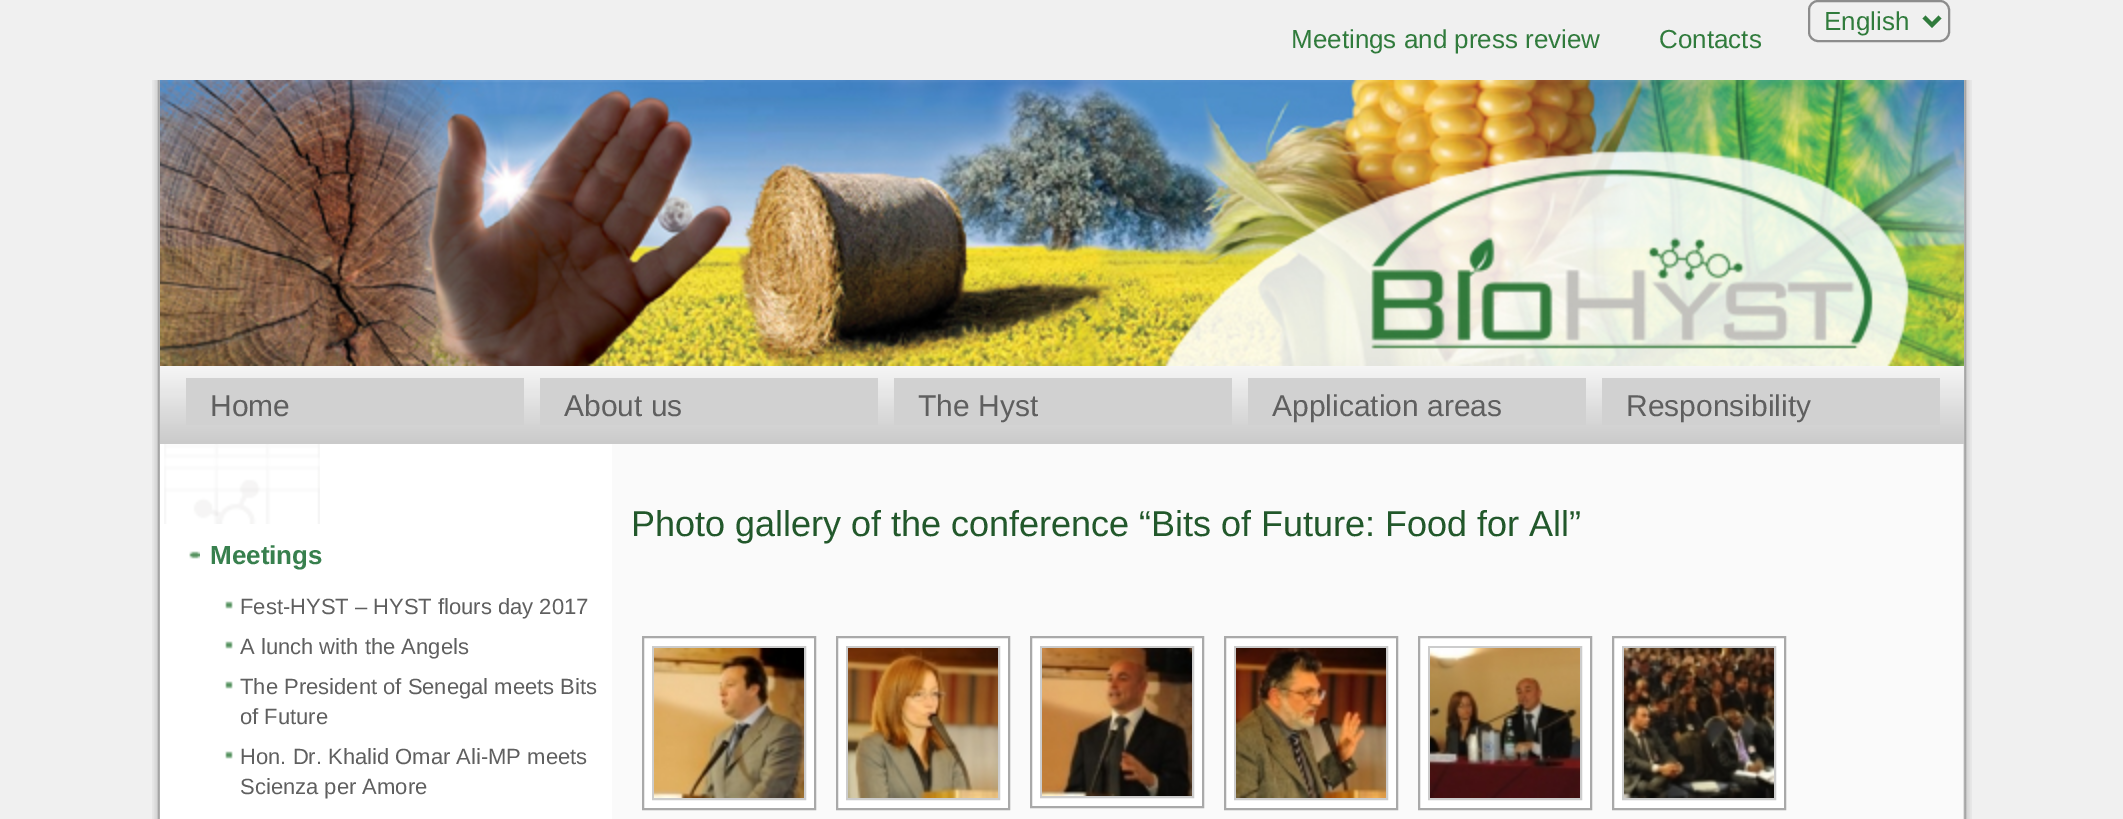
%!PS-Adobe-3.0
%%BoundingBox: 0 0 2123 819
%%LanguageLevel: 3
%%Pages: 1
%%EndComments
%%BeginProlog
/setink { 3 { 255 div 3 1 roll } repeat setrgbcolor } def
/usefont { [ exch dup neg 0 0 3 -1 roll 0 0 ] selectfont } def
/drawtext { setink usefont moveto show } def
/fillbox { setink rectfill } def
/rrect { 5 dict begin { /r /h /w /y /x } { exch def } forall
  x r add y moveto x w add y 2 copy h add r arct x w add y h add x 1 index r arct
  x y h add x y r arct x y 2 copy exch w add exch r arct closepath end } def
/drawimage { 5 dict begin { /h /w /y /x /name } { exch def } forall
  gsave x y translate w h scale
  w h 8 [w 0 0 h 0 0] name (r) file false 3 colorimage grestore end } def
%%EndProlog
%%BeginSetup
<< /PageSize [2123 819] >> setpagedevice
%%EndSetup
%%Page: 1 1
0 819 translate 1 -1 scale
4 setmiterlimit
0 0 2123 819 240 240 240 fillbox
140 140 140 setink
2 setlinewidth
1809 1 140 40 9 rrect stroke
48 123 60 setink
4 setlinewidth
1924 17 moveto 1932 25 lineto 1940 17 lineto stroke
(English) 1824 30 /LiberationSans-Regular 26 48 123 60 drawtext
(Meetings and press review) 1291 48 /LiberationSans-Regular 26 48 123 60 drawtext
(Contacts) 1659 48 /LiberationSans-Regular 26 48 123 60 drawtext
(assets/img1.rgb) 152 80 8 26 drawimage
(assets/img2.rgb) 1964 80 8 26 drawimage
(assets/img3.rgb) 152 106 8 713 drawimage
(assets/img15.rgb) 1946 106 26 713 drawimage
(assets/img4.rgb) 160 80 1804 286 drawimage
(assets/img5.rgb) 160 366 1804 78 drawimage
186 378 338 47 209 209 209 fillbox
(Home) 210 416 /LiberationSans-Regular 30 95 95 95 drawtext
540 378 338 47 209 209 209 fillbox
(About us) 564 416 /LiberationSans-Regular 30 95 95 95 drawtext
894 378 338 47 209 209 209 fillbox
(The Hyst) 918 416 /LiberationSans-Regular 30 95 95 95 drawtext
1248 378 338 47 209 209 209 fillbox
(Application areas) 1272 416 /LiberationSans-Regular 30 95 95 95 drawtext
1602 378 338 47 209 209 209 fillbox
(Responsibility) 1626 416 /LiberationSans-Regular 30 95 95 95 drawtext
612 444 1334 375 250 250 250 fillbox
(Photo gallery of the conference “Bits of Future: Food for All”) 631 536 /LiberationSans-Regular 36 34 88 43 drawtext
255 255 255 setink
643 637 moveto 815 637 lineto 815 809 lineto 643 809 lineto closepath gsave fill grestore
169 169 169 setink
2 setlinewidth
stroke
204 204 204 setink
653 647 152 152 rectstroke
(assets/img6.rgb) 654 648 150 150 drawimage
255 255 255 setink
837 637 moveto 1009 637 lineto 1009 809 lineto 837 809 lineto closepath gsave fill grestore
169 169 169 setink
stroke
204 204 204 setink
847 647 152 152 rectstroke
(assets/img7.rgb) 848 648 150 150 drawimage
255 255 255 setink
1031 637 moveto 1203 637 lineto 1203 807 lineto 1031 807 lineto closepath gsave fill grestore
169 169 169 setink
stroke
204 204 204 setink
1041 647 152 150 rectstroke
(assets/img8.rgb) 1042 648 150 148 drawimage
255 255 255 setink
1225 637 moveto 1397 637 lineto 1397 809 lineto 1225 809 lineto closepath gsave fill grestore
169 169 169 setink
stroke
204 204 204 setink
1235 647 152 152 rectstroke
(assets/img9.rgb) 1236 648 150 150 drawimage
255 255 255 setink
1419 637 moveto 1591 637 lineto 1591 809 lineto 1419 809 lineto closepath gsave fill grestore
169 169 169 setink
stroke
204 204 204 setink
1429 647 152 152 rectstroke
(assets/img10.rgb) 1430 648 150 150 drawimage
255 255 255 setink
1613 637 moveto 1785 637 lineto 1785 809 lineto 1613 809 lineto closepath gsave fill grestore
169 169 169 setink
stroke
204 204 204 setink
1623 647 152 152 rectstroke
(assets/img11.rgb) 1624 648 150 150 drawimage
160 444 452 375 255 255 255 fillbox
(assets/img12.rgb) 164 444 156 80 drawimage
(assets/img13.rgb) 189 551 11 8 drawimage
(Meetings) 210 564 /LiberationSans-Bold 26 56 128 78 drawtext
(assets/img14.rgb) 225 601 8 8 drawimage
(Fest-HYST – HYST flours day 2017) 240 614 /LiberationSans-Regular 22 95 95 95 drawtext
(assets/img14.rgb) 225 641 8 8 drawimage
(A lunch with the Angels) 240 654 /LiberationSans-Regular 22 95 95 95 drawtext
(assets/img14.rgb) 225 681 8 8 drawimage
(The President of Senegal meets Bits) 240 694 /LiberationSans-Regular 22 95 95 95 drawtext
(of Future) 240 724 /LiberationSans-Regular 22 95 95 95 drawtext
(assets/img14.rgb) 225 751 8 8 drawimage
(Hon. Dr. Khalid Omar Ali-MP meets) 240 764 /LiberationSans-Regular 22 95 95 95 drawtext
(Scienza per Amore) 240 794 /LiberationSans-Regular 22 95 95 95 drawtext
showpage
%%EOF
